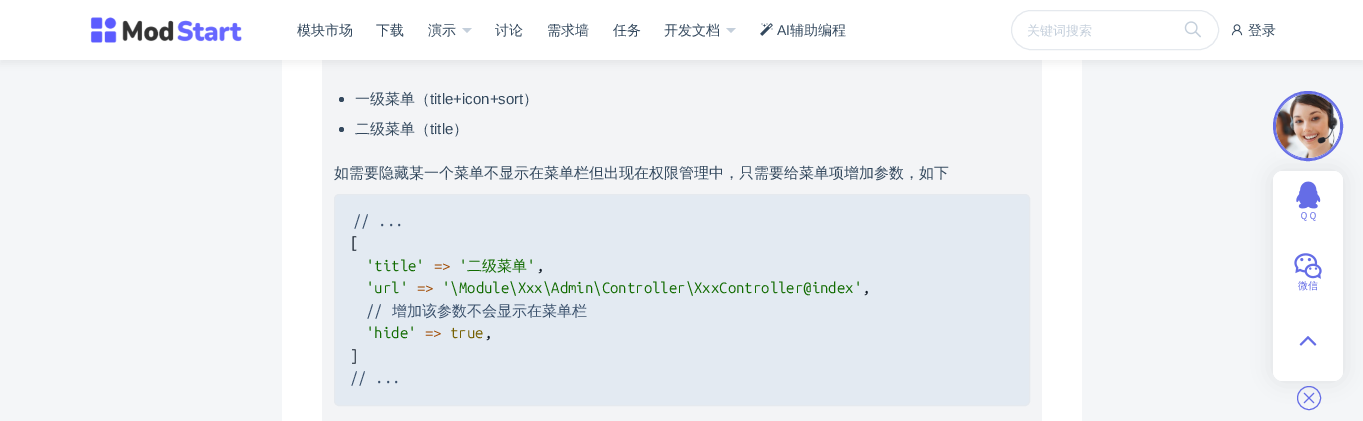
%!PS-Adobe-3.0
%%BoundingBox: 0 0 1363 421
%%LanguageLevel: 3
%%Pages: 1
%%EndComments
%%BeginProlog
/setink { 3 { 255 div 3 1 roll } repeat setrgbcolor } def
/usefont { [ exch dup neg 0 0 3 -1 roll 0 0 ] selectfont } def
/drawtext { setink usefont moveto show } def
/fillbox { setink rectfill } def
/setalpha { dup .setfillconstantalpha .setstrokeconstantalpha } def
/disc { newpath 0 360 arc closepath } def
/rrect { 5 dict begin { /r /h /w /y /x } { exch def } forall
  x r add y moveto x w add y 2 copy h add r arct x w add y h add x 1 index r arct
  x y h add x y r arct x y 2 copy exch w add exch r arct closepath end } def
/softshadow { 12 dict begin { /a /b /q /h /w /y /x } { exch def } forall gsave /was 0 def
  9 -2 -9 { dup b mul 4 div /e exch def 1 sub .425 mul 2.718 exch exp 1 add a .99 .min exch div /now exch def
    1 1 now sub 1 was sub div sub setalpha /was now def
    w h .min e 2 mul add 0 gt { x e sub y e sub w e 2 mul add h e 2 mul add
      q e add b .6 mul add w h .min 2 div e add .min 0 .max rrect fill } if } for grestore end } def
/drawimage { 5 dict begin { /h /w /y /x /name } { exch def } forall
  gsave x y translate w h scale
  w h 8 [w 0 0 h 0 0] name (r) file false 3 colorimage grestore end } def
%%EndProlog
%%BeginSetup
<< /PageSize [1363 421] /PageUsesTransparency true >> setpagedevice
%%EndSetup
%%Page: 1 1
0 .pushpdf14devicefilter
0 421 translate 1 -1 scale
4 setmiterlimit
0 0 1363 421 244 246 248 fillbox
282 60 800 361 255 255 255 fillbox
322 60 720 361 243 244 246 fillbox
0 0 0 setink
0 4 1363 60 0 4 0.05 softshadow
0 0 1363 60 255 255 255 fillbox
(assets/img1.rgb) 90 17 152 26 drawimage
(模块市场) 297 35 /WenQuanYiZenHei-Medium 14 52 73 94 drawtext
(下载) 376 35 /WenQuanYiZenHei-Medium 14 52 73 94 drawtext
(演示) 428 35 /WenQuanYiZenHei-Medium 14 52 73 94 drawtext
196 207 219 setink
462 28 moveto 472 28 lineto 467 33 lineto closepath fill
(讨论) 495 35 /WenQuanYiZenHei-Medium 14 52 73 94 drawtext
(需求墙) 547 35 /WenQuanYiZenHei-Medium 14 52 73 94 drawtext
(任务) 613 35 /WenQuanYiZenHei-Medium 14 52 73 94 drawtext
(开发文档) 664 35 /WenQuanYiZenHei-Medium 14 52 73 94 drawtext
196 207 219 setink
726 28 moveto 736 28 lineto 731 33 lineto closepath fill
(assets/img2.rgb) 760 23 13 13 drawimage
(AI) 777 35 /LiberationSans-Regular 14 52 73 94 drawtext
(辅助编程) 790 35 /WenQuanYiZenHei-Medium 14 52 73 94 drawtext
229 233 238 setink
1011.5 10.5 207 39 19.5 rrect stroke
(关键词搜索) 1027 35 /WenQuanYiZenHei-Medium 13 196 207 219 drawtext
(assets/img3.rgb) 1184 21 17 17 drawimage
(assets/img4.rgb) 1231 24 12 12 drawimage
(登录) 1248 35 /WenQuanYiZenHei-Medium 14 52 73 94 drawtext
341.5 99.5 2.5 disc fill
(一级菜单（) 355 104 /WenQuanYiZenHei-Medium 15 52 73 94 drawtext
(title+icon+sort) 430 104 /LiberationSans-Regular 15 52 73 94 drawtext
(）) 523 104 /WenQuanYiZenHei-Medium 15 52 73 94 drawtext
341.5 129.5 2.5 disc fill
(二级菜单（) 355 134 /WenQuanYiZenHei-Medium 15 52 73 94 drawtext
(title) 430 134 /LiberationSans-Regular 15 52 73 94 drawtext
(）) 453 134 /WenQuanYiZenHei-Medium 15 52 73 94 drawtext
(如需要隐藏某一个菜单不显示在菜单栏但出现在权限管理中，只需要给菜单项增加参数，如下) 334 178 /WenQuanYiZenHei-Medium 15 52 73 94 drawtext
227 234 242 setink
334.5 194.5 695 211 4.5 rrect gsave fill grestore
229 233 238 setink
stroke
(// ...) 353 226 /UbuntuMono-Regular 15 60 82 109 drawtext
([) 350 248 /UbuntuMono-Regular 15 17 27 39 drawtext
('title') 366 271 /UbuntuMono-Regular 15 17 107 0 drawtext
(') 459 271 /UbuntuMono-Regular 15 17 107 0 drawtext
(二级菜单) 467 271 /WenQuanYiZenHei-Medium 15 17 107 0 drawtext
(') 527 271 /UbuntuMono-Regular 15 17 107 0 drawtext
(=>) 434 271 /UbuntuMono-Regular 15 160 73 0 drawtext
(,) 536 271 /UbuntuMono-Regular 15 17 27 39 drawtext
('url') 366 293 /UbuntuMono-Regular 15 17 107 0 drawtext
(=>) 417 293 /UbuntuMono-Regular 15 160 73 0 drawtext
('\\Module\\Xxx\\Admin\\Controller\\XxxController@index') 442 293 /UbuntuMono-Regular 15 17 107 0 drawtext
(,) 862 293 /UbuntuMono-Regular 15 17 27 39 drawtext
(//) 366 316 /UbuntuMono-Regular 15 60 82 109 drawtext
(增加该参数不会显示在菜单栏) 392 316 /WenQuanYiZenHei-Medium 15 60 82 109 drawtext
('hide') 366 338 /UbuntuMono-Regular 15 17 107 0 drawtext
(=>) 425 338 /UbuntuMono-Regular 15 160 73 0 drawtext
(true) 450 338 /UbuntuMono-Regular 15 117 95 0 drawtext
(,) 484 338 /UbuntuMono-Regular 15 17 27 39 drawtext
(]) 350 361 /UbuntuMono-Regular 15 17 27 39 drawtext
(// ...) 350 383 /UbuntuMono-Regular 15 60 82 109 drawtext
0 0 0 setink
1273 171 70 210 10 10 0.08 softshadow
255 255 255 setink
1273 171 70 210 10 rrect fill
101 109 230 setink
2 setlinewidth
1308 126 34 disc stroke
1 setlinewidth
1308 126 32.5 disc stroke
(assets/img5.rgb) 1276 94 64 64 drawimage
255 255 255 setink
1283 171 moveto 1333 171 lineto 1338.5 171 1343 175.5 1343 181 curveto 1343 241 lineto 1273 241 lineto 1273 181 lineto 1273 175.5 1277.5 171 1283 171 curveto closepath fill
(assets/img6.rgb) 1296 181 25 28 drawimage
(ＱＱ) 1299 219 /WenQuanYiZenHei-Medium 10 101 109 230 drawtext
(assets/img7.rgb) 1294 253 28 26 drawimage
(微信) 1298 289 /WenQuanYiZenHei-Medium 10 101 109 230 drawtext
255 255 255 setink
1273 311 moveto 1343 311 lineto 1343 371 lineto 1343 376.5 1338.5 381 1333 381 curveto 1283 381 lineto 1277.5 381 1273 376.5 1273 371 curveto closepath fill
(assets/img8.rgb) 1299 336 18 10 drawimage
101 109 230 setink
1309 398 11.5 disc stroke
(assets/img9.rgb) 1303 392 12 12 drawimage
.poppdf14devicefilter showpage
%%EOF
